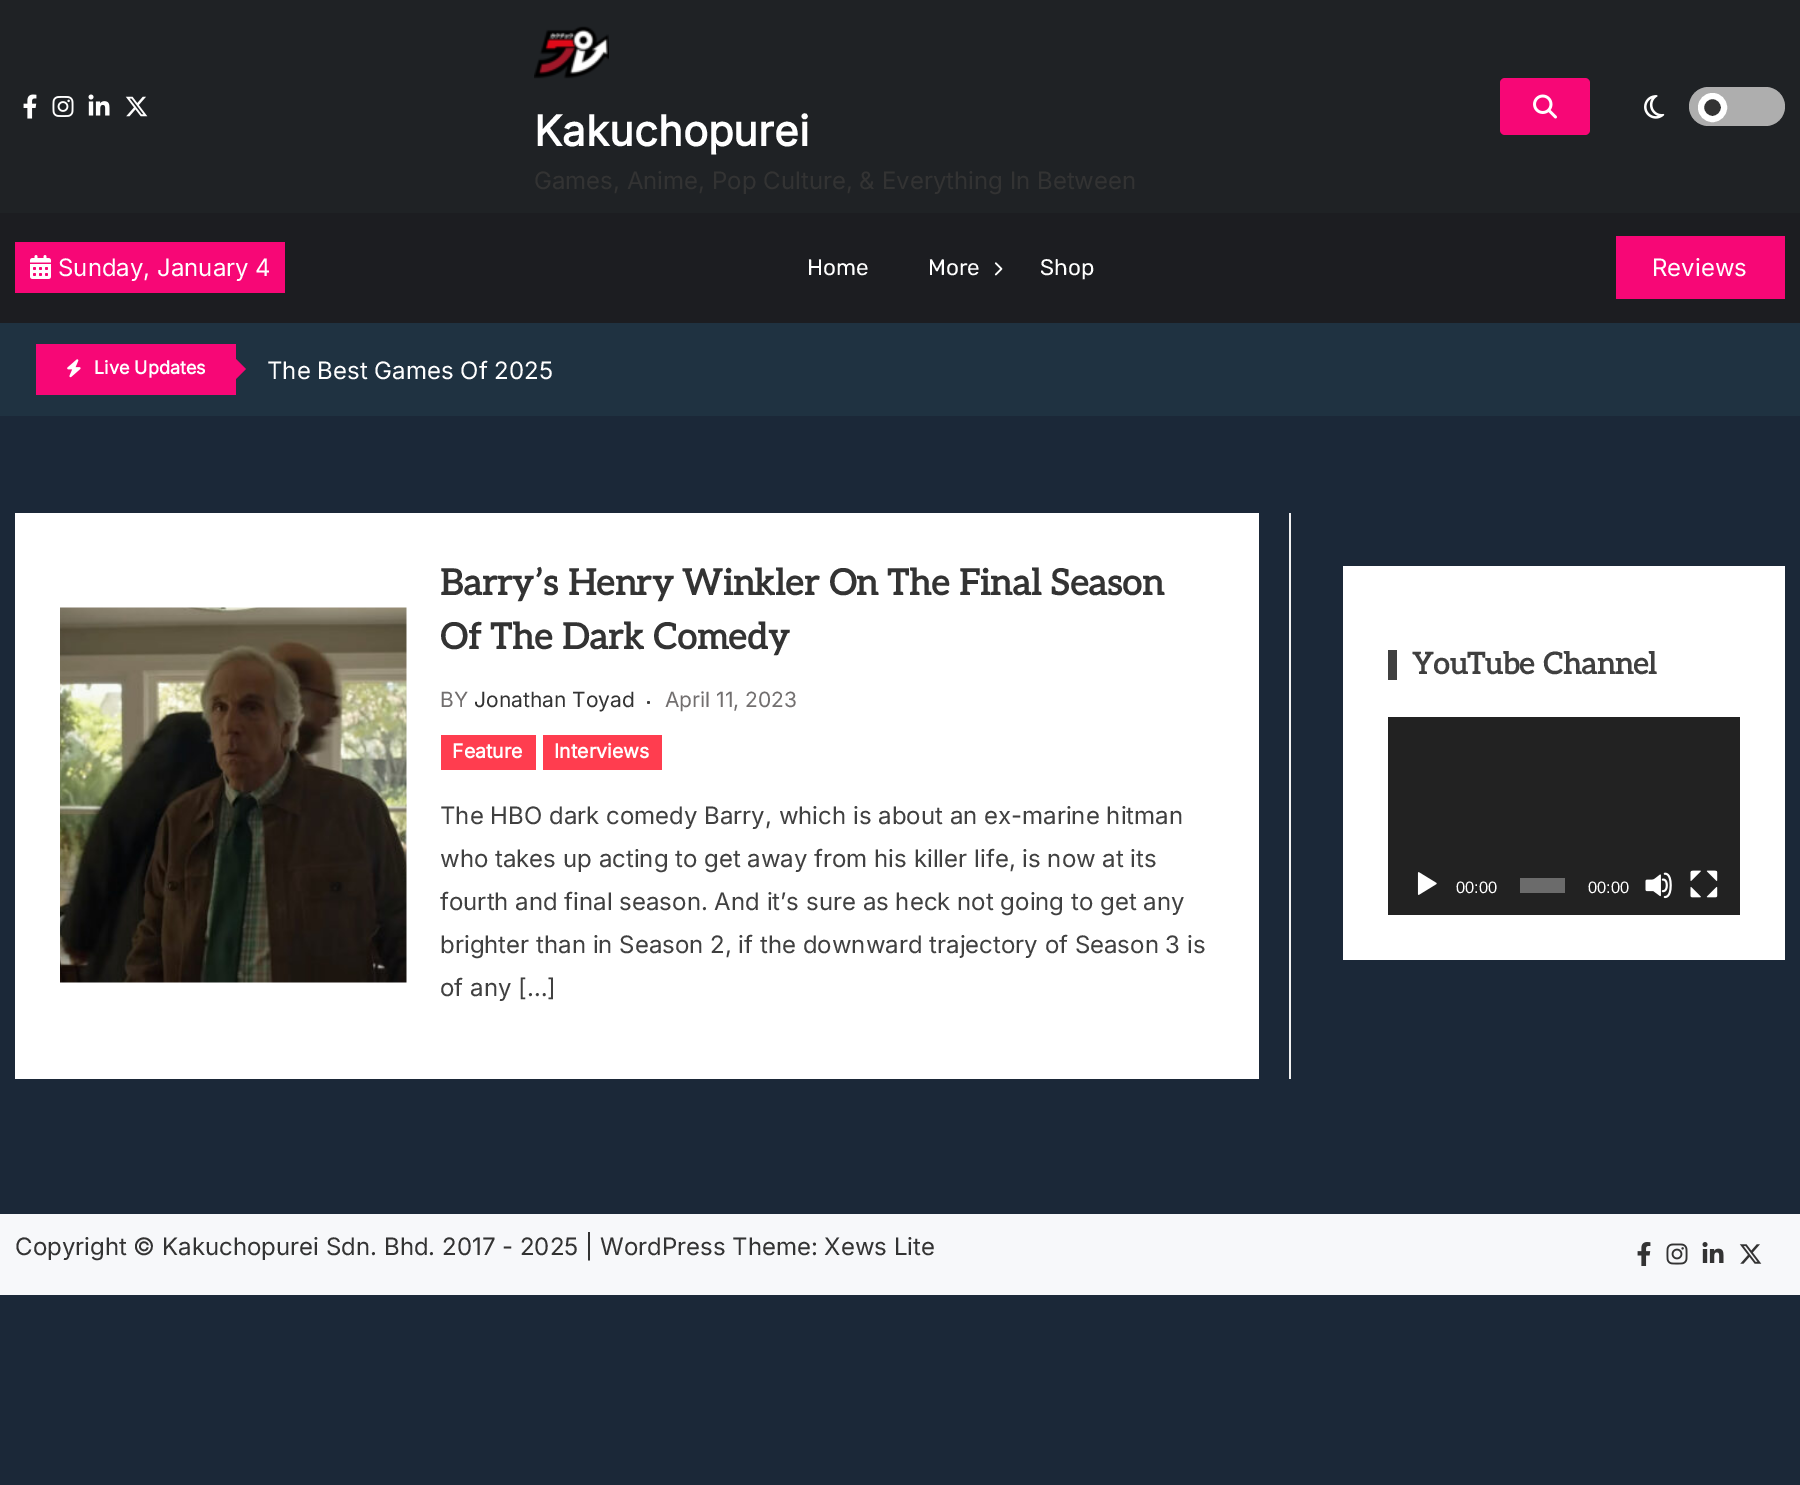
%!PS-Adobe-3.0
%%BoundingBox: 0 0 1800 1485
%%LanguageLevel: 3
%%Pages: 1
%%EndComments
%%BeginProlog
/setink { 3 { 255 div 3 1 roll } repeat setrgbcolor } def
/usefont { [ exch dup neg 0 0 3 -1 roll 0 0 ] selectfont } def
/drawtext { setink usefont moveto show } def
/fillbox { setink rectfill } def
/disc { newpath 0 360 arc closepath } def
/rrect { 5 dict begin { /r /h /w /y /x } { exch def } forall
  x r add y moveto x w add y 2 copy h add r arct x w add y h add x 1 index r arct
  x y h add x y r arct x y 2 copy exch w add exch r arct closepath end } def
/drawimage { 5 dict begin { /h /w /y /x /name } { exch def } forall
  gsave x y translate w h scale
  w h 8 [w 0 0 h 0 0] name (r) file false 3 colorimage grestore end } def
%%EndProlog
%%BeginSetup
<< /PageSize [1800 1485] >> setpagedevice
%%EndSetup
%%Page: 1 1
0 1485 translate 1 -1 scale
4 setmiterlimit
0 0 1800 1485 27 40 56 fillbox
0 0 1800 213 31 34 37 fillbox
(assets/img1.rgb) 23 94 14 25 drawimage
(assets/img2.rgb) 52 96 22 21 drawimage
(assets/img3.rgb) 88 94 22 22 drawimage
(assets/img4.rgb) 125 96 23 21 drawimage
247 7 118 setink
1500 78 90 57 5 rrect fill
(assets/img5.rgb) 1533 94 24 25 drawimage
(assets/img6.rgb) 1644 95 21 24 drawimage
174 174 174 setink
1689 87 96 39 19.5 rrect fill
51 51 51 setink
1712.5 107.5 11.5 disc gsave fill grestore
255 255 255 setink
6 setlinewidth
stroke
(assets/img7.rgb) 534 26 75 53 drawimage
(Kakuchopurei) 534 146 /Inter-Bold 42 255 255 255 drawtext
(Games, Anime, Pop Culture, & Everything In Between) 534 189 /Inter-Regular 24 51 51 51 drawtext
0 213 1800 110 28 29 33 fillbox
15 242 270 51 247 7 118 fillbox
(assets/img8.rgb) 30 255 21 24 drawimage
(Sunday, January 4) 58 276 /Inter-Regular 24 255 255 255 drawtext
(Home) 807 275 /Rubik-Light 22.5 255 255 255 drawtext
(More) 928 275 /Rubik-Light 22.5 255 255 255 drawtext
(assets/img9.rgb) 994 262 9 14 drawimage
(Shop) 1040 275 /Rubik-Light 22.5 255 255 255 drawtext
1616 236 169 63 247 7 118 fillbox
(Reviews) 1652 276 /Inter-Regular 24 255 255 255 drawtext
0 323 1800 93 31 50 65 fillbox
36 344 200 51 247 7 118 fillbox
(assets/img10.rgb) 67 359 14 19 drawimage
(Live Updates) 94 374 /Inter-Bold 18 255 255 255 drawtext
247 7 118 setink
234 381 moveto 234 357 lineto 246 369 lineto closepath fill
(The Best Games Of 2025) 267 379 /Inter-Regular 24 255 255 255 drawtext
1289 513 2 566 241 241 241 fillbox
15 513 1244 566 255 255 255 fillbox
(assets/img11.rgb) 60 607 347 376 drawimage
(Barry’s Henry Winkler On The Final Season) 440 595 /Aleo-Bold 36 51 51 51 drawtext
(Of The Dark Comedy) 440 649 /Aleo-Bold 36 51 51 51 drawtext
(BY) 440 707 /Inter-Regular 21 114 111 111 drawtext
(Jonathan Toyad) 474 707 /Inter-Regular 21 51 51 51 drawtext
64 64 64 setink
648.5 702.5 1.5 disc fill
(April 11, 2023) 665 707 /Inter-Regular 21 114 111 111 drawtext
441 735 95 35 255 61 79 fillbox
(Feature) 452 758 /Inter-Bold 19.5 255 255 255 drawtext
543 735 119 35 255 61 79 fillbox
(Interviews) 554 758 /Inter-Bold 19.5 255 255 255 drawtext
(The HBO dark comedy Barry, which is about an ex-marine hitman) 440 824 /Inter-Regular 24 64 64 64 drawtext
(who takes up acting to get away from his killer life, is now at its) 440 867 /Inter-Regular 24 64 64 64 drawtext
(fourth and final season. And it’s sure as heck not going to get any) 440 910 /Inter-Regular 24 64 64 64 drawtext
(brighter than in Season 2, if the downward trajectory of Season 3 is) 440 953 /Inter-Regular 24 64 64 64 drawtext
(of any […]) 440 996 /Inter-Regular 24 64 64 64 drawtext
1343 566 442 394 255 255 255 fillbox
1388 650 9 30 64 64 64 fillbox
(YouTube Channel) 1412 674 /Aleo-Bold 30 64 64 64 drawtext
1388 717 352 198 34 34 34 fillbox
(assets/img12.rgb) 1417 872 20 23 drawimage
(00:00) 1456 893 /LiberationSans-Regular 16.5 255 255 255 drawtext
1520 878 45 15 107 107 107 fillbox
(00:00) 1588 893 /LiberationSans-Regular 16.5 255 255 255 drawtext
(assets/img13.rgb) 1645 872 27 27 drawimage
(assets/img14.rgb) 1690 870 28 28 drawimage
0 1214 1800 81 247 248 250 fillbox
(Copyright © Kakuchopurei Sdn. Bhd. 2017 - 2025 | WordPress Theme: Xews Lite) 15 1255 /Inter-Regular 24 51 51 51 drawtext
(assets/img15.rgb) 1637 1242 14 24 drawimage
(assets/img16.rgb) 1666 1243 22 22 drawimage
(assets/img17.rgb) 1702 1242 22 21 drawimage
(assets/img18.rgb) 1739 1244 23 20 drawimage
showpage
%%EOF
